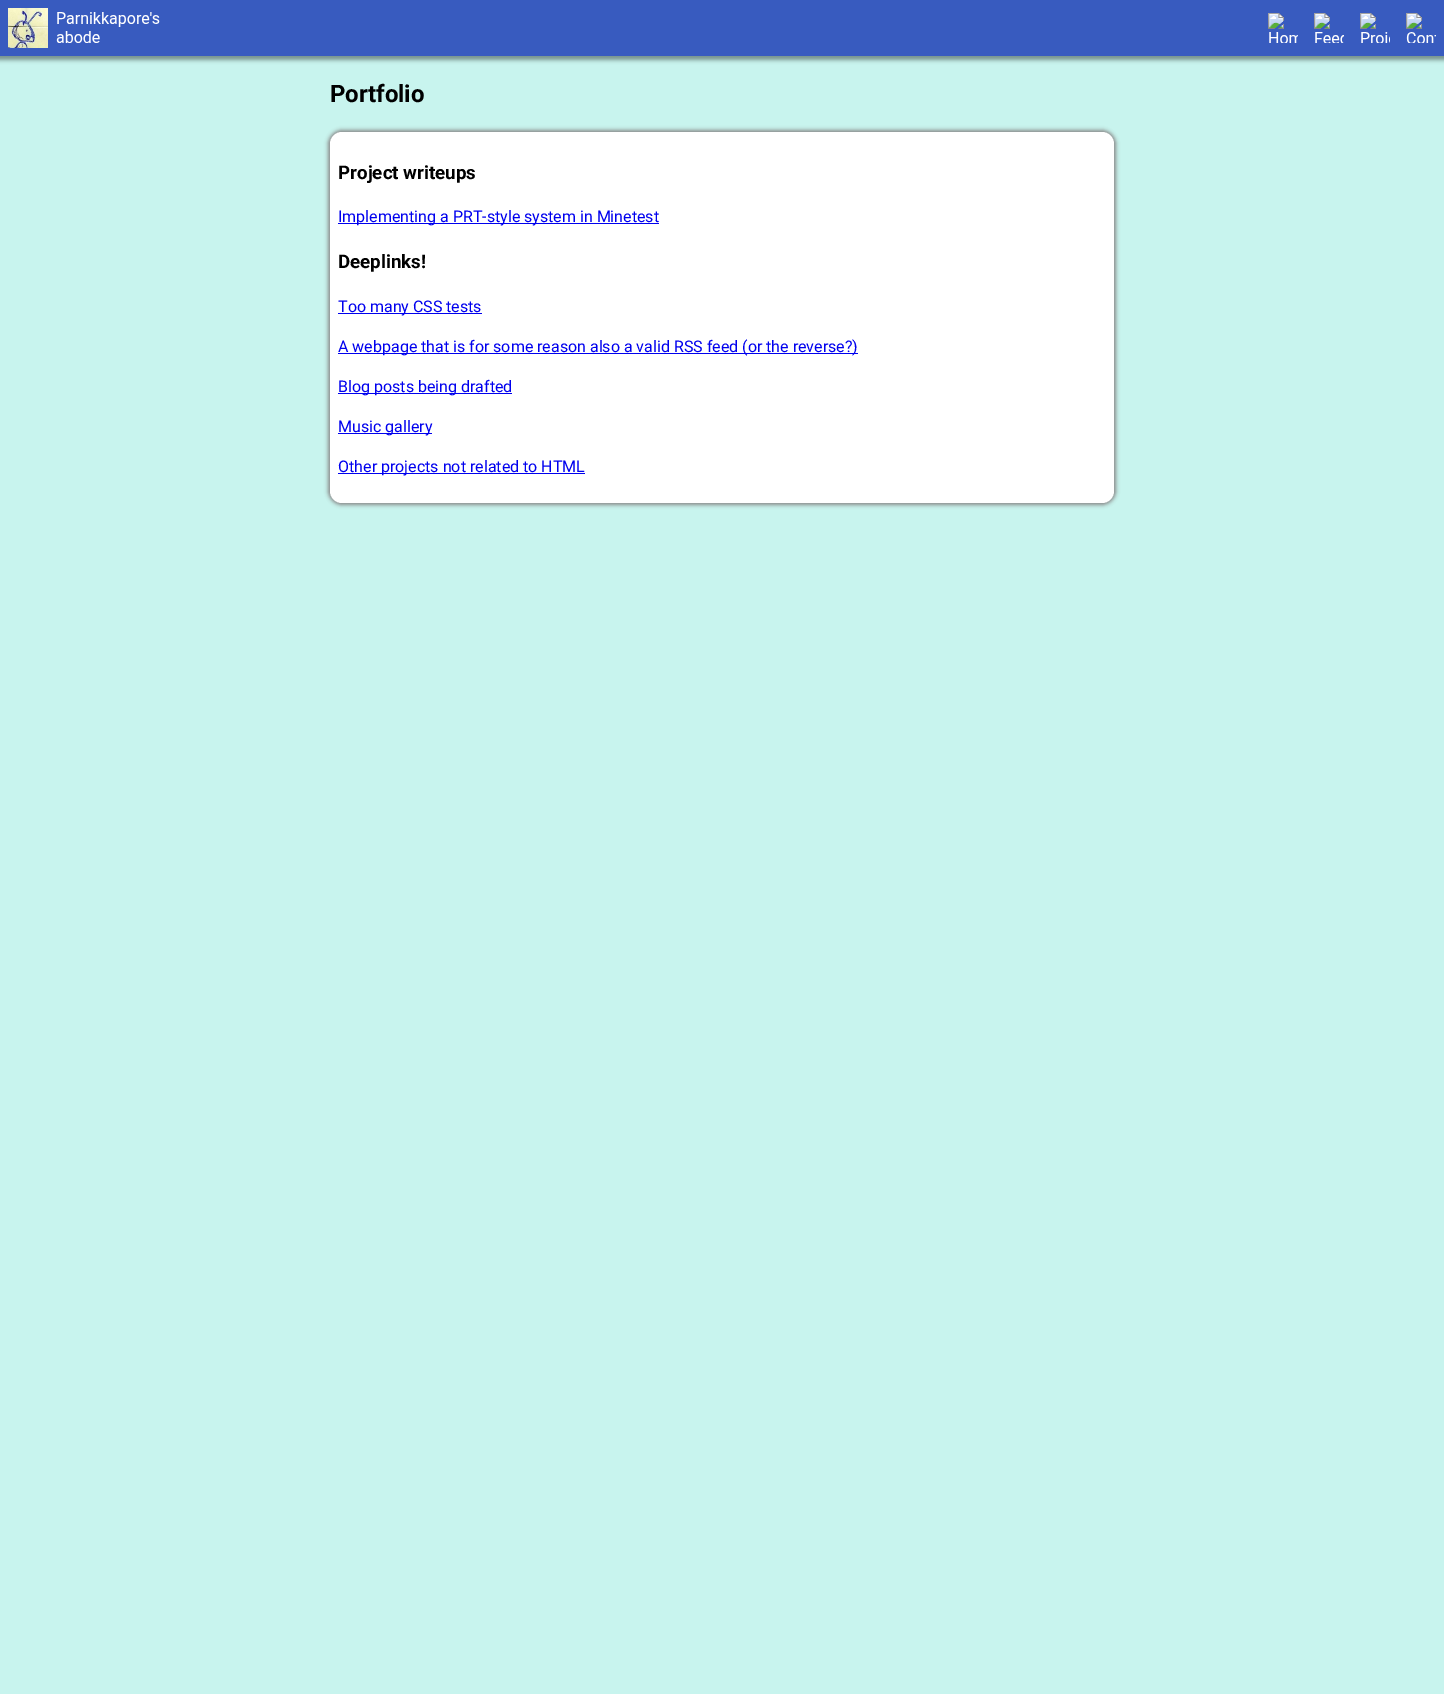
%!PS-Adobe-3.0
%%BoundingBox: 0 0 1444 1694
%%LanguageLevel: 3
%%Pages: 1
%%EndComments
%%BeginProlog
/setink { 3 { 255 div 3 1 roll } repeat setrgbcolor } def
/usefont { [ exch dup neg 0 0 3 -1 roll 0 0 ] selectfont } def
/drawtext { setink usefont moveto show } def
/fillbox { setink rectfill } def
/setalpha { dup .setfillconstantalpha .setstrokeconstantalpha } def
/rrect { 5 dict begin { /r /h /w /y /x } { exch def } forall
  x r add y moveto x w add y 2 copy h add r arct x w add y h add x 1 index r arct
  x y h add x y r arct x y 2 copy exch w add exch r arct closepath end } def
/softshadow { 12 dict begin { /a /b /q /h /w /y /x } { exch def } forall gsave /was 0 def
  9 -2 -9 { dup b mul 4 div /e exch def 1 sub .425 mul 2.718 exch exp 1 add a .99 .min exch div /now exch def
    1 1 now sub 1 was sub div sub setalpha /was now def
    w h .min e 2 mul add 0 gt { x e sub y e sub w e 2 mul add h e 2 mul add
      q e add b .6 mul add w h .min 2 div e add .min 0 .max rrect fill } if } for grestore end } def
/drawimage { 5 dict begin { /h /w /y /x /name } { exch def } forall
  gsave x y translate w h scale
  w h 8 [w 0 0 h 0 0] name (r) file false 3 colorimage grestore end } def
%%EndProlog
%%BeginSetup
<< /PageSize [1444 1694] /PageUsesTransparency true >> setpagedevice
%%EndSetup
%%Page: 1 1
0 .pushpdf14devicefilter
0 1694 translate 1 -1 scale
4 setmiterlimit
0 0 1444 1694 200 244 238 fillbox
0 0 0 setink
-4 -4 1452 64 0 2 0.4 softshadow
(assets/img1.rgb) 0 0 1444 56 drawimage
(Portfolio) 330 102 /Roboto-Bold 24 0 0 0 drawtext
136 136 136 setink
328 130 788 375 14 2 1 softshadow
255 255 255 setink
330 132 784 371 12 rrect fill
(Project writeups) 338 179 /Roboto-Bold 18.75 0 0 0 drawtext
338 223 321 1 0 0 238 fillbox
(Implementing a PRT-style system in Minetest) 338 222 /Roboto-Regular 16 0 0 238 drawtext
(Deeplinks!) 338 268 /Roboto-Bold 18.75 0 0 0 drawtext
338 313 144 1 0 0 238 fillbox
(Too many CSS tests) 338 312 /Roboto-Regular 16 0 0 238 drawtext
338 353 520 1 0 0 238 fillbox
(A webpage that is for some reason also a valid RSS feed \(or the reverse?\)) 338 352 /Roboto-Regular 16 0 0 238 drawtext
338 393 174 1 0 0 238 fillbox
(Blog posts being drafted) 338 392 /Roboto-Regular 16 0 0 238 drawtext
338 433 94 1 0 0 238 fillbox
(Music gallery) 338 432 /Roboto-Regular 16 0 0 238 drawtext
338 473 247 1 0 0 238 fillbox
(Other projects not related to HTML) 338 472 /Roboto-Regular 16 0 0 238 drawtext
.poppdf14devicefilter showpage
%%EOF
